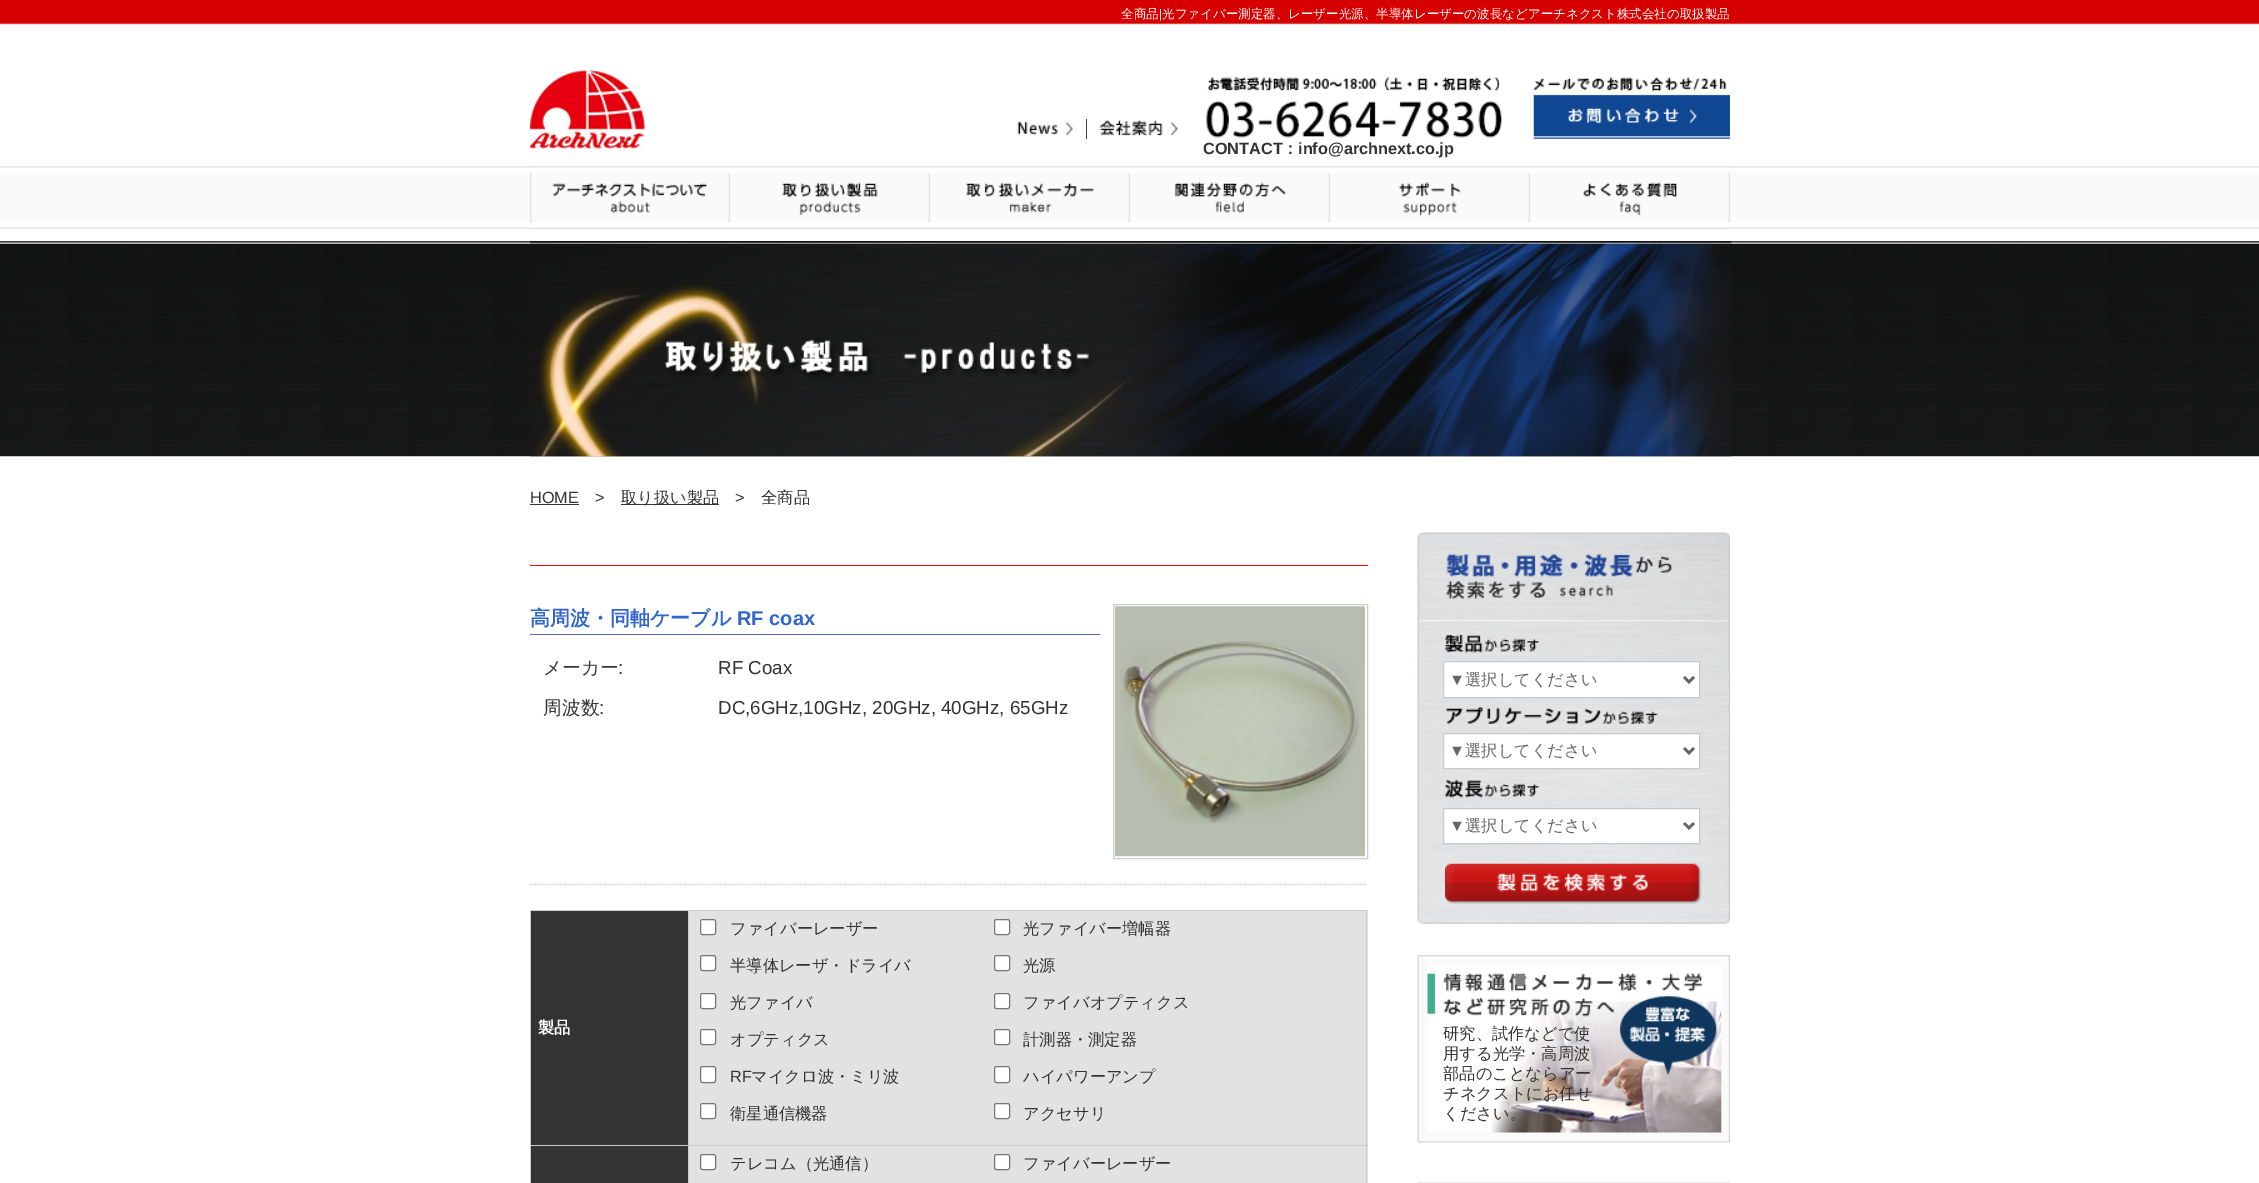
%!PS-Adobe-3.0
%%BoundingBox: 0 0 2259 1183
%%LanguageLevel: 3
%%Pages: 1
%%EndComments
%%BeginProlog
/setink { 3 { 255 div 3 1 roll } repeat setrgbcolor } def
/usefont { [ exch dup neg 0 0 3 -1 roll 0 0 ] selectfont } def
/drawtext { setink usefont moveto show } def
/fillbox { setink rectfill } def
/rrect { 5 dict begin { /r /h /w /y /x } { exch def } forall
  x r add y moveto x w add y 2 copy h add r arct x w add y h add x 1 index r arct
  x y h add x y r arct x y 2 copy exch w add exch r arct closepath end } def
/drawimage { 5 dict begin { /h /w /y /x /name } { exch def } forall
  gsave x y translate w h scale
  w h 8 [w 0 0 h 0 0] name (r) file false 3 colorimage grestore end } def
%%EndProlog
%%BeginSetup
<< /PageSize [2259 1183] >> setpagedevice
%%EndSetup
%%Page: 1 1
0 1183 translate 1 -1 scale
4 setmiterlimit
0 0 2259 1183 255 255 255 fillbox
(assets/img1.rgb) 0 0 2259 229 drawimage
(全商品) 1121 18 /WenQuanYiZenHei-Medium 12.5 255 255 255 drawtext
(|) 1159 18 /LiberationSans-Regular 12.5 255 255 255 drawtext
(光ファイバー測定器、レーザー光源、半導体レーザーの波長などアーチネクスト株式会社の取扱製品) 1162 18 /WenQuanYiZenHei-Medium 12.5 255 255 255 drawtext
(assets/img2.rgb) 530 70 115 79 drawimage
1086 119 1 20 61 61 61 fillbox
(assets/img3.rgb) 1017 121 56 15 drawimage
(assets/img4.rgb) 1099 119 79 17 drawimage
(assets/img5.rgb) 1533 77 197 62 drawimage
(assets/img6.rgb) 1206 77 296 61 drawimage
(CONTACT) 1203 154 /LiberationSans-Bold 16.25 51 51 51 drawtext
(：) 1282 154 /WenQuanYiZenHei-Bold 16.25 51 51 51 drawtext
(info@archnext.co.jp) 1298 154 /LiberationSans-Bold 16.25 51 51 51 drawtext
(assets/img7.rgb) 530 166 200 63 drawimage
(assets/img8.rgb) 730 166 200 63 drawimage
(assets/img9.rgb) 930 166 200 63 drawimage
(assets/img10.rgb) 1130 166 200 63 drawimage
(assets/img11.rgb) 1330 166 200 63 drawimage
(assets/img12.rgb) 1530 166 200 63 drawimage
(assets/img13.rgb) 0 241 2259 216 drawimage
(assets/img14.rgb) 530 241 1202 216 drawimage
(HOME) 530 503 /LiberationSans-Regular 16.25 51 51 51 drawtext
530 504 49 1 51 51 51 fillbox
(>) 595 503 /LiberationSans-Regular 16.25 51 51 51 drawtext
621 504 98 1 51 51 51 fillbox
(取り扱い製品) 621 503 /WenQuanYiZenHei-Medium 16.25 51 51 51 drawtext
(>) 735 503 /LiberationSans-Regular 16.25 51 51 51 drawtext
(全商品) 761 503 /WenQuanYiZenHei-Medium 16.25 51 51 51 drawtext
530 565 838 1 255 0 0 fillbox
204 204 204 setink
1.2 setlinewidth
[1.25 1.25] 0 setdash
530 884.5 moveto 1367.5 884.5 lineto stroke
530 634 570 1 87 105 182 fillbox
(高周波・同軸ケーブル) 530 625 /WenQuanYiZenHei-Bold 20 51 102 204 drawtext
(RF coax) 737 625 /LiberationSans-Bold 20 51 102 204 drawtext
(メーカー) 543 674 /WenQuanYiZenHei-Medium 18.75 51 51 51 drawtext
(:) 618 674 /LiberationSans-Regular 18.75 51 51 51 drawtext
(RF Coax) 718 674 /LiberationSans-Regular 18.75 51 51 51 drawtext
(周波数) 543 714 /WenQuanYiZenHei-Medium 18.75 51 51 51 drawtext
(:) 599 714 /LiberationSans-Regular 18.75 51 51 51 drawtext
(DC,6GHz,10GHz, 20GHz, 40GHz, 65GHz) 718 714 /LiberationSans-Regular 18.75 51 51 51 drawtext
204 204 204 setink
1 setlinewidth
[] 0 setdash
1113.5 604.5 254 254 rectstroke
(assets/img15.rgb) 1115 606 250 251 drawimage
531 911 157 234 51 51 51 fillbox
688 910 680 1 204 204 204 fillbox
688 1145 680 1 204 204 204 fillbox
688 1145 1 38 204 204 204 fillbox
530 1145 159 1 204 204 204 fillbox
688 910 1 236 204 204 204 fillbox
530 910 159 1 204 204 204 fillbox
530 1145 1 38 204 204 204 fillbox
530 910 1 236 204 204 204 fillbox
(製品) 538 1033 /WenQuanYiZenHei-Bold 16.25 255 255 255 drawtext
689 911 679 234 226 226 226 fillbox
689 1146 679 37 226 226 226 fillbox
1366 1145 1 38 204 204 204 fillbox
1366 910 1 236 204 204 204 fillbox
255 255 255 setink
700.5 919.5 15 15 2 rrect gsave fill grestore
118 118 118 setink
stroke
(ファイバーレーザー) 730 934 /WenQuanYiZenHei-Medium 16.25 51 51 51 drawtext
255 255 255 setink
994.5 919.5 15 15 2 rrect gsave fill grestore
118 118 118 setink
stroke
(光ファイバー増幅器) 1023 934 /WenQuanYiZenHei-Medium 16.25 51 51 51 drawtext
255 255 255 setink
700.5 955.5 15 15 2 rrect gsave fill grestore
118 118 118 setink
stroke
(半導体レーザ・ドライバ) 730 971 /WenQuanYiZenHei-Medium 16.25 51 51 51 drawtext
255 255 255 setink
994.5 955.5 15 15 2 rrect gsave fill grestore
118 118 118 setink
stroke
(光源) 1023 971 /WenQuanYiZenHei-Medium 16.25 51 51 51 drawtext
255 255 255 setink
700.5 993.5 15 15 2 rrect gsave fill grestore
118 118 118 setink
stroke
(光ファイバ) 730 1008 /WenQuanYiZenHei-Medium 16.25 51 51 51 drawtext
255 255 255 setink
994.5 993.5 15 15 2 rrect gsave fill grestore
118 118 118 setink
stroke
(ファイバオプティクス) 1023 1008 /WenQuanYiZenHei-Medium 16.25 51 51 51 drawtext
255 255 255 setink
700.5 1029.5 15 15 2 rrect gsave fill grestore
118 118 118 setink
stroke
(オプティクス) 730 1045 /WenQuanYiZenHei-Medium 16.25 51 51 51 drawtext
255 255 255 setink
994.5 1029.5 15 15 2 rrect gsave fill grestore
118 118 118 setink
stroke
(計測器・測定器) 1023 1045 /WenQuanYiZenHei-Medium 16.25 51 51 51 drawtext
255 255 255 setink
700.5 1066.5 15 16 2 rrect gsave fill grestore
118 118 118 setink
stroke
(RF) 730 1082 /LiberationSans-Regular 16.25 51 51 51 drawtext
(マイクロ波・ミリ波) 751 1082 /WenQuanYiZenHei-Medium 16.25 51 51 51 drawtext
255 255 255 setink
994.5 1066.5 15 16 2 rrect gsave fill grestore
118 118 118 setink
stroke
(ハイパワーアンプ) 1023 1082 /WenQuanYiZenHei-Medium 16.25 51 51 51 drawtext
255 255 255 setink
700.5 1103.5 15 15 2 rrect gsave fill grestore
118 118 118 setink
stroke
(衛星通信機器) 730 1119 /WenQuanYiZenHei-Medium 16.25 51 51 51 drawtext
255 255 255 setink
994.5 1103.5 15 15 2 rrect gsave fill grestore
118 118 118 setink
stroke
(アクセサリ) 1023 1119 /WenQuanYiZenHei-Medium 16.25 51 51 51 drawtext
531 1146 157 37 51 51 51 fillbox
255 255 255 setink
700.5 1154.5 15 15 2 rrect gsave fill grestore
118 118 118 setink
stroke
(テレコム（光通信）) 730 1169 /WenQuanYiZenHei-Medium 16.25 51 51 51 drawtext
255 255 255 setink
994.5 1154.5 15 15 2 rrect gsave fill grestore
118 118 118 setink
stroke
(ファイバーレーザー) 1023 1169 /WenQuanYiZenHei-Medium 16.25 51 51 51 drawtext
(assets/img16.rgb) 1417 532 313 392 drawimage
255 255 255 setink
1443.5 661.5 moveto 1699.5 661.5 lineto 1699.5 697.5 lineto 1443.5 697.5 lineto closepath gsave fill grestore
201 201 201 setink
stroke
102 102 102 setink
2.5 setlinewidth
1684 677 moveto 1689 682 lineto 1694 677 lineto stroke
(▼) 1449 685 /LiberationSans-Regular 16.25 102 102 102 drawtext
(選択してください) 1465 685 /WenQuanYiZenHei-Medium 16.25 102 102 102 drawtext
255 255 255 setink
1443.5 733.5 moveto 1699.5 733.5 lineto 1699.5 768.5 lineto 1443.5 768.5 lineto closepath gsave fill grestore
201 201 201 setink
1 setlinewidth
stroke
102 102 102 setink
2.5 setlinewidth
1684 748 moveto 1689 753 lineto 1694 748 lineto stroke
(▼) 1449 756 /LiberationSans-Regular 16.25 102 102 102 drawtext
(選択してください) 1465 756 /WenQuanYiZenHei-Medium 16.25 102 102 102 drawtext
255 255 255 setink
1443.5 808.5 moveto 1699.5 808.5 lineto 1699.5 843.5 lineto 1443.5 843.5 lineto closepath gsave fill grestore
201 201 201 setink
1 setlinewidth
stroke
102 102 102 setink
2.5 setlinewidth
1684 823 moveto 1689 828 lineto 1694 823 lineto stroke
(▼) 1449 831 /LiberationSans-Regular 16.25 102 102 102 drawtext
(選択してください) 1465 831 /WenQuanYiZenHei-Medium 16.25 102 102 102 drawtext
(assets/img17.rgb) 1445 863 257 41 drawimage
(assets/img18.rgb) 1417 955 313 188 drawimage
(研究、試作などで使) 1443 1039 /WenQuanYiZenHei-Medium 16.25 51 51 51 drawtext
(用する光学・高周波) 1443 1059 /WenQuanYiZenHei-Medium 16.25 51 51 51 drawtext
(部品のことならアー) 1443 1079 /WenQuanYiZenHei-Medium 16.25 51 51 51 drawtext
(チネクストにお任せ) 1443 1099 /WenQuanYiZenHei-Medium 16.25 51 51 51 drawtext
(ください。) 1443 1119 /WenQuanYiZenHei-Medium 16.25 51 51 51 drawtext
(assets/img19.rgb) 1417 1182 313 1 drawimage
showpage
%%EOF
